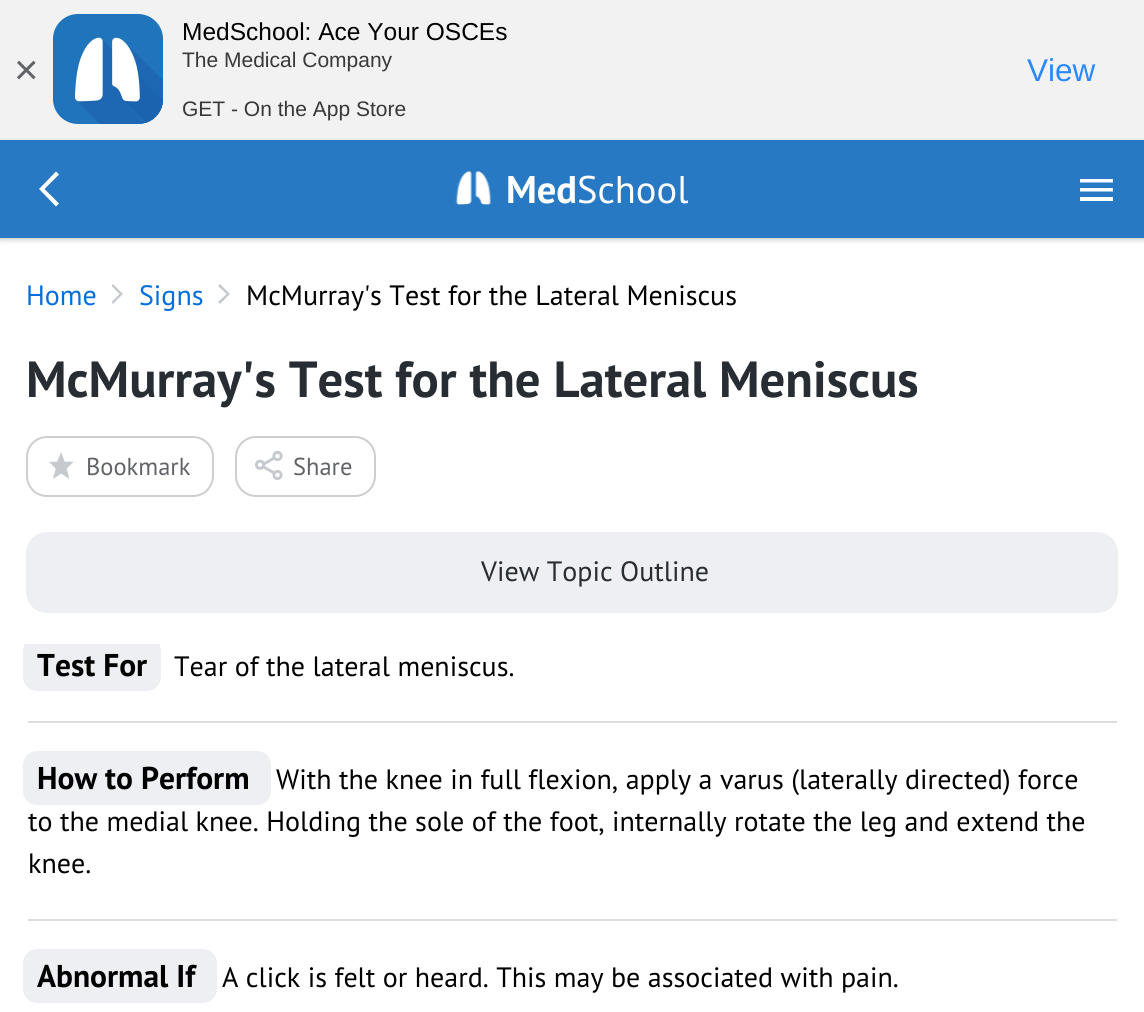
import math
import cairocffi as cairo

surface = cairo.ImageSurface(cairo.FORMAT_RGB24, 1144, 1012)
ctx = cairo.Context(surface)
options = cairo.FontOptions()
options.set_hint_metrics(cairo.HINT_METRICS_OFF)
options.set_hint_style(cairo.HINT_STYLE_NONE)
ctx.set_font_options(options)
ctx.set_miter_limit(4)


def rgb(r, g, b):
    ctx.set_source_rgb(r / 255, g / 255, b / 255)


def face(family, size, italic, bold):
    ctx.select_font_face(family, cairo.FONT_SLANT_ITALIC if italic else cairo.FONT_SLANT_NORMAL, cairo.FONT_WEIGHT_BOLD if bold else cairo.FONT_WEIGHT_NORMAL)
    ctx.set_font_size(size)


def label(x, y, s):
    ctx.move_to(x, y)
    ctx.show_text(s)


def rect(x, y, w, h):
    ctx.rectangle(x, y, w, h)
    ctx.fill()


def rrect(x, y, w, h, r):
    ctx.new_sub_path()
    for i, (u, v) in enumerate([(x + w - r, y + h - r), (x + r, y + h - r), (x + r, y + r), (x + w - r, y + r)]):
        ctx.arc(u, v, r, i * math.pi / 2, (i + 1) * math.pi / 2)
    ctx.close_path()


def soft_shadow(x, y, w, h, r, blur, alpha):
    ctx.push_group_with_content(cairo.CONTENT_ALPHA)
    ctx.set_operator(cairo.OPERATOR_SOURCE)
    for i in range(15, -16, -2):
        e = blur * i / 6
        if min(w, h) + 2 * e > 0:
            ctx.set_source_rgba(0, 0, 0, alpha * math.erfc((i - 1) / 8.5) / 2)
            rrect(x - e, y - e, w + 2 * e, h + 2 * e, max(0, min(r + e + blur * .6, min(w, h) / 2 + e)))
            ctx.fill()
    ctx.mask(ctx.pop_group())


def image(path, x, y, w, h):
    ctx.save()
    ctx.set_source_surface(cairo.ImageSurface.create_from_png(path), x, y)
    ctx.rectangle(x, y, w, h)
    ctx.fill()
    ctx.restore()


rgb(255, 255, 255)
ctx.paint()
rgb(242, 242, 242)
rect(0, 0, 1144, 140)
face('Liberation Sans', 42, 0, 0)
rgb(97, 99, 103)
label(14, 84, '×')
image('image0.png', 53, 14, 110, 110)
face('Liberation Sans', 24.5, 0, 0)
rgb(0, 0, 0)
label(182, 40, 'MedSchool: Ace Your OSCEs')
face('Liberation Sans', 21, 0, 0)
rgb(56, 56, 56)
label(182, 67, 'The Medical Company')
label(182, 116, 'GET - On the App Store')
face('Liberation Sans', 31.5, 0, 0)
rgb(42, 137, 253)
label(1027, 81, 'View')
rgb(0, 0, 0)
soft_shadow(0, 142, 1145, 98, 0, 2.5, 0.2)
rgb(39, 121, 196)
rect(0, 140, 1144, 98)
rgb(255, 255, 255)
ctx.new_path()
ctx.move_to(56, 171.5)
ctx.line_to(39, 189)
ctx.line_to(56, 206.5)
ctx.line_to(59, 203.5)
ctx.line_to(44.5, 189)
ctx.line_to(59, 174.5)
ctx.close_path()
ctx.fill()
image('image1.png', 455, 171, 37, 34)
face('PT Sans', 38.5, 0, 1)
label(506, 203, 'Med')
face('PT Sans', 38.5, 0, 0)
label(577, 203, 'School')
ctx.new_path()
ctx.move_to(1113, 201)
ctx.line_to(1080, 201)
ctx.line_to(1080, 197)
ctx.line_to(1113, 197)
ctx.close_path()
ctx.move_to(1113, 191.5)
ctx.line_to(1080, 191.5)
ctx.line_to(1080, 188)
ctx.line_to(1113, 188)
ctx.close_path()
ctx.move_to(1113, 182.5)
ctx.line_to(1080, 182.5)
ctx.line_to(1080, 179)
ctx.line_to(1113, 179)
ctx.close_path()
ctx.fill()
face('PT Sans', 28, 0, 0)
rgb(4, 111, 218)
label(26, 305, 'Home')
rgb(198, 202, 206)
ctx.new_path()
ctx.move_to(113, 304)
ctx.line_to(123, 294)
ctx.line_to(113, 284)
ctx.line_to(111.5, 286)
ctx.line_to(119.5, 294)
ctx.line_to(111.5, 302)
ctx.close_path()
ctx.fill()
rgb(4, 111, 218)
label(139, 305, 'Signs')
rgb(198, 202, 206)
ctx.new_path()
ctx.move_to(220, 304)
ctx.line_to(230, 294)
ctx.line_to(220, 284)
ctx.line_to(218, 286)
ctx.line_to(226.5, 294)
ctx.line_to(218, 302)
ctx.close_path()
ctx.fill()
rgb(0, 0, 0)
label(246, 305, 'McMurray\'s Test for the Lateral Meniscus')
face('PT Sans', 50.75, 0, 1)
rgb(40, 44, 51)
label(26, 397, 'McMurray\'s Test for the Lateral Meniscus')
rrect(27, 437, 186, 59, 20)
rgb(206, 206, 206)
ctx.stroke()
image('image2.png', 49, 452, 25, 27)
face('PT Sans', 24.5, 0, 0)
rgb(97, 99, 103)
label(86, 475, 'Bookmark')
rrect(236, 437, 139, 59, 20)
rgb(206, 206, 206)
ctx.stroke()
image('image3.png', 255, 450, 28, 30)
rgb(97, 99, 103)
label(293, 475, 'Share')
rgb(238, 239, 242)
rrect(26, 532, 1092, 81, 21)
ctx.fill()
face('PT Sans', 28, 0, 0)
rgb(40, 44, 51)
label(481, 581, 'View Topic Outline')
ctx.save()
ctx.rectangle(0, 644, 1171, 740)
ctx.clip()
rgb(238, 239, 242)
rrect(23, 637, 138, 54, 14)
ctx.fill()
ctx.restore()
face('PT Sans', 31.5, 0, 1)
rgb(0, 0, 0)
label(37, 676, 'Test For')
face('PT Sans', 28, 0, 0)
label(174, 676, 'Tear of the lateral meniscus.')
rgb(221, 221, 221)
rect(28, 721, 1089, 2)
rgb(238, 239, 242)
rrect(23, 751, 248, 54, 14)
ctx.fill()
face('PT Sans', 31.5, 0, 1)
rgb(0, 0, 0)
label(37, 789, 'How to Perform')
face('PT Sans', 28, 0, 0)
label(276, 789, 'With the knee in full flexion, apply a varus (laterally directed) force')
label(28, 831, 'to the medial knee. Holding the sole of the foot, internally rotate the leg and extend the')
label(28, 873, 'knee.')
rgb(221, 221, 221)
rect(28, 919, 1089, 2)
rgb(238, 239, 242)
rrect(23, 949, 194, 54, 14)
ctx.fill()
face('PT Sans', 31.5, 0, 1)
rgb(0, 0, 0)
label(37, 987, 'Abnormal If')
face('PT Sans', 28, 0, 0)
label(222, 987, 'A click is felt or heard. This may be associated with pain.')
surface.write_to_png('render.png')
